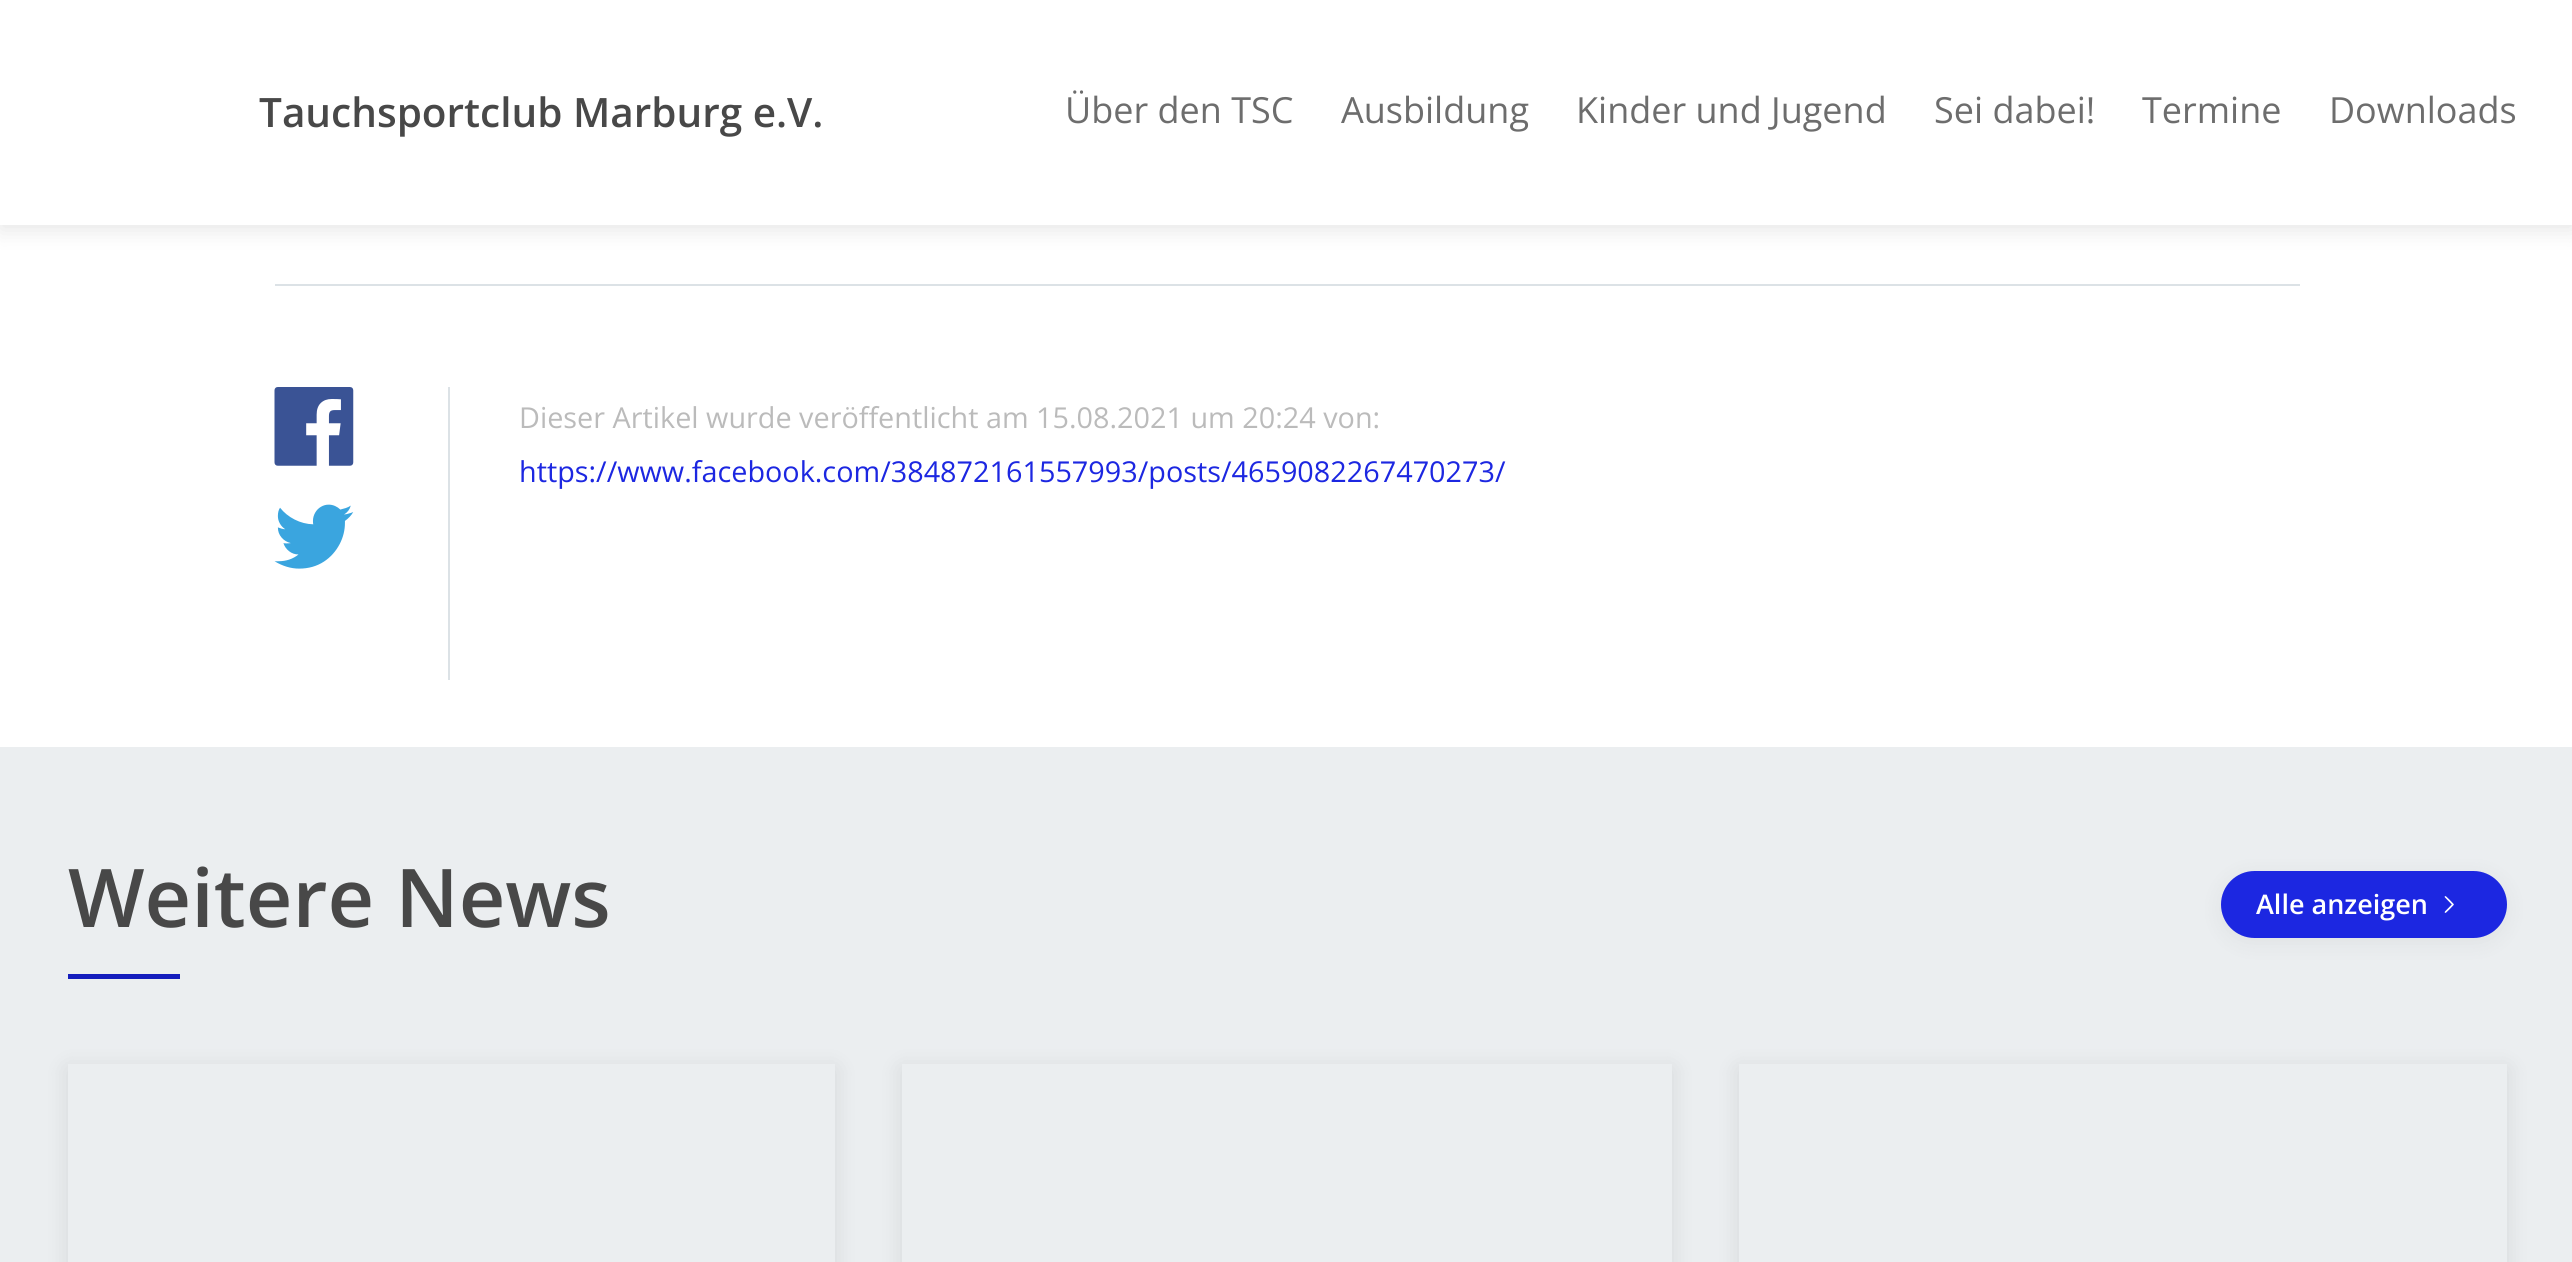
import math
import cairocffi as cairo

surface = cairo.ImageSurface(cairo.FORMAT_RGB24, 2572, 1262)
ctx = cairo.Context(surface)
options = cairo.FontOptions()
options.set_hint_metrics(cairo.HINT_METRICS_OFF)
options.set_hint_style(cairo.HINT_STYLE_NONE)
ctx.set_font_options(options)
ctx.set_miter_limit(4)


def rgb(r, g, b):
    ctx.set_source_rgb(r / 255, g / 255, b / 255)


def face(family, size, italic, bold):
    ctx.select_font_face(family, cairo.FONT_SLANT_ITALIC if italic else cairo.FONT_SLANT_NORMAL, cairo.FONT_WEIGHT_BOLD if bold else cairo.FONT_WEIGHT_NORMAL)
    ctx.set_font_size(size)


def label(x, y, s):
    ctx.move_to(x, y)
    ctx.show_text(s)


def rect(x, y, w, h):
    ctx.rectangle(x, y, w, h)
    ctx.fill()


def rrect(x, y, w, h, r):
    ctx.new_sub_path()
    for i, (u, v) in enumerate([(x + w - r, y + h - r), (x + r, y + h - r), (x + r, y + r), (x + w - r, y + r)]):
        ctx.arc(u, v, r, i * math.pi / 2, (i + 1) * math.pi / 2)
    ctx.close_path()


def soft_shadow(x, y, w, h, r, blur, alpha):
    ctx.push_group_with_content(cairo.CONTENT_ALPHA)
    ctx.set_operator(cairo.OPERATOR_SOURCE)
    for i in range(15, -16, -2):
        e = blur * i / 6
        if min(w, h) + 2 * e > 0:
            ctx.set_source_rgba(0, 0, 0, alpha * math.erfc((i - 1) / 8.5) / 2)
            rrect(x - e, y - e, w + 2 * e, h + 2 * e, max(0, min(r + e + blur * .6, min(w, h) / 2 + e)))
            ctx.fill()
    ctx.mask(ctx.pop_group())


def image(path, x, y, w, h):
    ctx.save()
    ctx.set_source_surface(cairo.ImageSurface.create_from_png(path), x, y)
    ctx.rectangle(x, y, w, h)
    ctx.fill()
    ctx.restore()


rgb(255, 255, 255)
ctx.paint()
rgb(0, 0, 0)
soft_shadow(0, 5, 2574, 225, 0, 11, 0.1)
rgb(255, 255, 255)
rect(0, 0, 2572, 225)
face('Open Sans SemiBold', 40.5, 0, 0)
rgb(72, 72, 72)
label(259, 127, 'Tauchsportclub Marburg e.V.')
face('Open Sans', 36, 0, 0)
rgb(109, 109, 109)
label(1065, 123, 'Über den TSC')
label(1341, 123, 'Ausbildung')
label(1576, 123, 'Kinder und Jugend')
label(1934, 123, 'Sei dabei!')
label(2142, 123, 'Termine')
label(2329, 123, 'Downloads')
rgb(220, 226, 230)
rect(275, 284, 2025, 2)
image('image0.png', 274, 387, 80, 79)
image('image1.png', 274, 504, 80, 65)
rect(448, 387, 2, 293)
face('Open Sans', 28.8, 0, 0)
rgb(187, 187, 187)
label(519, 428, 'Dieser Artikel wurde veröffentlicht am 15.08.2021 um 20:24 von:')
rgb(28, 39, 225)
label(519, 482, 'https://www.facebook.com/384872161557993/posts/4659082267470273/')
rgb(235, 238, 240)
rect(0, 747, 2572, 515)
face('Open Sans SemiBold', 81, 0, 0)
rgb(72, 72, 72)
label(68, 927, 'Weitere News')
rgb(20, 29, 189)
rect(68, 974, 112, 5)
rgb(0, 0, 0)
soft_shadow(2221, 875, 286, 68, 34, 11, 0.05)
rgb(28, 39, 225)
rrect(2221, 871, 286, 67, 33.5)
ctx.fill()
face('Open Sans SemiBold', 27, 0, 0)
rgb(255, 255, 255)
label(2256, 914, 'Alle anzeigen')
image('image2.png', 2444, 896, 10, 17)
rgb(0, 0, 0)
soft_shadow(68, 1069, 767, 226, 0, 11, 0.1)
rgb(235, 238, 240)
rect(68, 1064, 767, 198)
rgb(0, 0, 0)
soft_shadow(902, 1069, 770, 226, 0, 11, 0.1)
rgb(235, 238, 240)
rect(902, 1064, 770, 198)
rgb(0, 0, 0)
soft_shadow(1739, 1069, 768, 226, 0, 11, 0.1)
rgb(235, 238, 240)
rect(1739, 1064, 768, 198)
surface.write_to_png('render.png')
